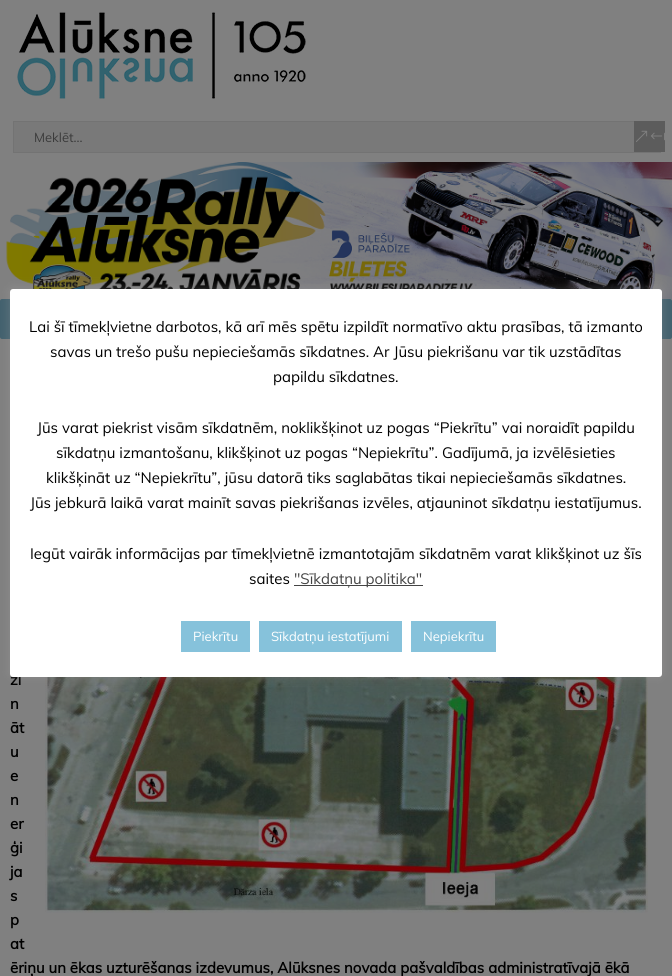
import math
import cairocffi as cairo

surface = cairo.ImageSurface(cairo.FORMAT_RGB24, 672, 976)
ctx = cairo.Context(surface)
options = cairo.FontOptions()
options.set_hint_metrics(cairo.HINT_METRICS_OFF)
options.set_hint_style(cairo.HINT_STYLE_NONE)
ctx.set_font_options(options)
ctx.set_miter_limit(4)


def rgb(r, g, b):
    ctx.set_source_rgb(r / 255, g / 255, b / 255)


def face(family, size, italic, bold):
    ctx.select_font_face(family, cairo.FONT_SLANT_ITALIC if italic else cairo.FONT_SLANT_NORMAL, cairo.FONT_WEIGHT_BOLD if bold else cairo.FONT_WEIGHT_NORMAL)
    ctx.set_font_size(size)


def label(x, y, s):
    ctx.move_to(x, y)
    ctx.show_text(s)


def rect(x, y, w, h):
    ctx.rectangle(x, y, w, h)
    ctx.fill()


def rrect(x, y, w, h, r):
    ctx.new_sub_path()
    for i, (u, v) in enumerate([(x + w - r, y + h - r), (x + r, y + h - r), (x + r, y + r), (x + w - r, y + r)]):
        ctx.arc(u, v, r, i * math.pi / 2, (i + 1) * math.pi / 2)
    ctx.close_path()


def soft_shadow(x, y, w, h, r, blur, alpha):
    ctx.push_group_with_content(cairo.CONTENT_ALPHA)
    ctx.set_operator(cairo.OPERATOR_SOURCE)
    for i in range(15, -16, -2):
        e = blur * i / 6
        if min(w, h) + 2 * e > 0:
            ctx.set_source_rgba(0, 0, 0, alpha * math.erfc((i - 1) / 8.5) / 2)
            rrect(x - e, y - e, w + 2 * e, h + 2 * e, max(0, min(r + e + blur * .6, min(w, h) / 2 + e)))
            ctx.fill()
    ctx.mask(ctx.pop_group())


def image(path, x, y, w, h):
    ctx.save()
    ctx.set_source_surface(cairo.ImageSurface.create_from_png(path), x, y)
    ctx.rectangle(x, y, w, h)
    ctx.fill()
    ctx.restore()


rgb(128, 128, 128)
ctx.paint()
image('image0.png', 17, 12, 289, 87)
rgb(121, 121, 121)
rect(14, 122, 620, 30)
ctx.rectangle(13.5, 121.5, 647, 31)
rgb(115, 115, 115)
ctx.set_line_width(1)
ctx.stroke()
face('Muli', 13, 0, 0)
rgb(59, 59, 59)
label(34, 142, 'Meklēt...')
rgb(92, 92, 92)
rect(634, 121, 31, 31)
image('image1.png', 636, 130, 29, 12)
image('image2.png', 6, 162, 666, 137)
rgb(67, 97, 110)
rrect(0, 299, 672, 40, 2)
ctx.fill()
face('Muli', 15, 0, 1)
rgb(0, 0, 0)
label(10, 685, 'zi')
image('image3.png', 45, 677, 603, 236)
label(10, 709, 'n')
label(10, 733, 'āt')
label(10, 757, 'u')
label(10, 781, 'e')
label(10, 805, 'n')
label(10, 829, 'er')
label(10, 853, 'ģi')
label(10, 877, 'ja')
label(10, 901, 's')
label(10, 925, 'p')
label(10, 949, 'at')
label(10, 973, 'ēriņu un ēkas uzturēšanas izdevumus, Alūksnes novada pašvaldības administratīvajā ēkā')
rgb(172, 171, 171)
soft_shadow(10, 288, 652, 388, 3, 5, 0.3)
rgb(255, 255, 255)
rrect(10, 289, 652, 388, 3)
ctx.fill()
face('Muli', 15, 0, 0)
rgb(0, 0, 0)
label(29, 332, 'Lai šī tīmekļvietne darbotos, kā arī mēs spētu izpildīt normatīvo aktu prasības, tā izmanto')
label(50, 357, 'savas un trešo pušu nepieciešamās sīkdatnes. Ar Jūsu piekrišanu var tik uzstādītas')
label(273, 382, 'papildu sīkdatnes.')
label(37, 433, 'Jūs varat piekrist visām sīkdatnēm, noklikšķinot uz pogas “Piekrītu” vai noraidīt papildu')
label(56, 458, 'sīkdatņu izmantošanu, klikšķinot uz pogas “Nepiekrītu”. Gadījumā, ja izvēlēsieties')
label(46, 483, 'klikšķināt uz “Nepiekrītu”, jūsu datorā tiks saglabātas tikai nepieciešamās sīkdatnes.')
label(30, 508, 'Jūs jebkurā laikā varat mainīt savas piekrišanas izvēles, atjauninot sīkdatņu iestatījumus.')
label(30, 559, 'Iegūt vairāk informācijas par tīmekļvietnē izmantotajām sīkdatnēm varat klikšķinot uz šīs')
label(249, 584, 'saites')
rgb(68, 68, 68)
rect(294, 585, 129, 1)
label(294, 584, '"Sīkdatņu politika"')
rgb(134, 194, 219)
rect(181, 621, 69, 31)
face('Muli', 13, 0, 0)
rgb(255, 255, 255)
label(193, 641, 'Piekrītu')
rgb(134, 194, 219)
rect(259, 621, 143, 31)
rgb(255, 255, 255)
label(271, 641, 'Sīkdatņu iestatījumi')
rgb(134, 194, 219)
rect(411, 621, 85, 31)
rgb(255, 255, 255)
label(423, 641, 'Nepiekrītu')
surface.write_to_png('render.png')
